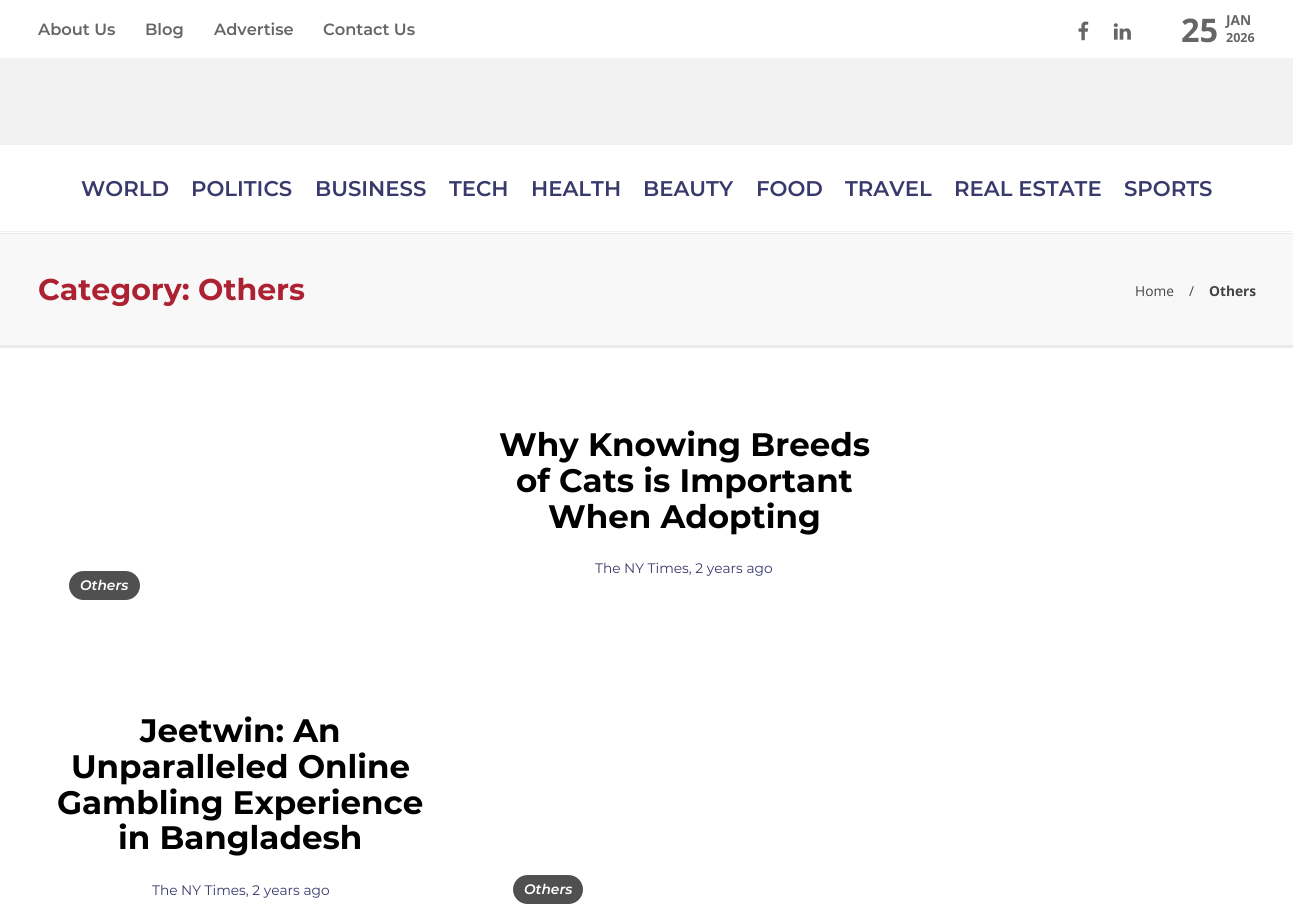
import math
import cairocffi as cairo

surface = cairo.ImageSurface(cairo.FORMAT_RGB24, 1293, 910)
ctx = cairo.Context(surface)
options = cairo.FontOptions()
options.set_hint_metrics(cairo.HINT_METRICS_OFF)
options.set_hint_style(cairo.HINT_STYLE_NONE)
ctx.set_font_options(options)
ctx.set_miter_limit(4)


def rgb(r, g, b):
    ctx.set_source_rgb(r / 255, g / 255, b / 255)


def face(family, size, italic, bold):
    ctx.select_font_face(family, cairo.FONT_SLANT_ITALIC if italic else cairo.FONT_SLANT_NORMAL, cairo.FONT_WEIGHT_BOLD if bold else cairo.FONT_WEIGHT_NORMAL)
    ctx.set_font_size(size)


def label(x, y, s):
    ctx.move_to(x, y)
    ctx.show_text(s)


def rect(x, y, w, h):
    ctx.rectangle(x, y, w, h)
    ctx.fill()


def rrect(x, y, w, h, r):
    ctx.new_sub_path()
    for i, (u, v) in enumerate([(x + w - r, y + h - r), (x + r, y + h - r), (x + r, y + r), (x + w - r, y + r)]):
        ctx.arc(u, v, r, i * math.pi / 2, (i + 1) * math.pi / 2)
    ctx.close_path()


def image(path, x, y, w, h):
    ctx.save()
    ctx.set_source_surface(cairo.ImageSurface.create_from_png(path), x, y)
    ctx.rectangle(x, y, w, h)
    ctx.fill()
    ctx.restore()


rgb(255, 255, 255)
ctx.paint()
face('Montserrat SemiBold', 16.25, 0, 0)
rgb(102, 102, 102)
label(38, 35, 'About Us')
label(145, 35, 'Blog')
label(214, 35, 'Advertise')
label(323, 35, 'Contact Us')
image('image0.png', 1078, 21, 11, 20)
image('image1.png', 1113, 23, 18, 17)
face('Open Sans', 32.5, 0, 1)
label(1181, 42, '25')
face('Open Sans', 13.75, 0, 1)
label(1226, 25, 'JAN')
face('Open Sans', 12.5, 0, 1)
label(1226, 42, '2026')
rgb(242, 242, 242)
rect(0, 58, 1293, 86)
rgb(241, 241, 241)
rect(0, 144, 1293, 1)
rect(0, 231, 1293, 1)
face('Montserrat SemiBold', 21.25, 0, 0)
rgb(58, 57, 107)
label(81, 196, 'WORLD')
label(191, 196, 'POLITICS')
label(315, 196, 'BUSINESS')
label(449, 196, 'TECH')
label(531, 196, 'HEALTH')
label(643, 196, 'BEAUTY')
label(756, 196, 'FOOD')
label(845, 196, 'TRAVEL')
label(954, 196, 'REAL ESTATE')
label(1124, 196, 'SPORTS')
rgb(248, 248, 248)
rect(0, 234, 1293, 111)
rgb(235, 235, 235)
rect(0, 233, 1293, 1)
rect(0, 345, 1293, 3)
face('Montserrat', 30, 0, 1)
rgb(173, 34, 51)
label(38, 300, 'Category: Others')
face('Open Sans', 13.75, 0, 0)
rgb(68, 68, 68)
label(1135, 296, 'Home')
label(1189, 296, '/')
face('Open Sans', 13.75, 0, 1)
label(1209, 296, 'Others')
face('Montserrat', 32.5, 0, 1)
rgb(0, 0, 0)
label(499, 456, 'Why Knowing Breeds')
label(516, 492, 'of Cats is Important')
label(548, 528, 'When Adopting')
face('Montserrat', 13.75, 0, 0)
rgb(58, 57, 107)
label(595, 573, 'The NY Times, 2 years ago')
rgb(81, 80, 80)
rrect(69, 571, 71, 29, 14.5)
ctx.fill()
face('Montserrat SemiBold', 13.75, 1, 0)
rgb(255, 255, 255)
label(80, 590, 'Others')
face('Montserrat', 32.5, 0, 1)
rgb(0, 0, 0)
label(140, 742, 'Jeetwin: An')
label(71, 778, 'Unparalleled Online')
label(57, 814, 'Gambling Experience')
label(118, 849, 'in Bangladesh')
face('Montserrat', 13.75, 0, 0)
rgb(58, 57, 107)
label(152, 895, 'The NY Times, 2 years ago')
rgb(81, 80, 80)
rrect(513, 875, 70, 29, 14.5)
ctx.fill()
face('Montserrat SemiBold', 13.75, 1, 0)
rgb(255, 255, 255)
label(524, 894, 'Others')
surface.write_to_png('render.png')
